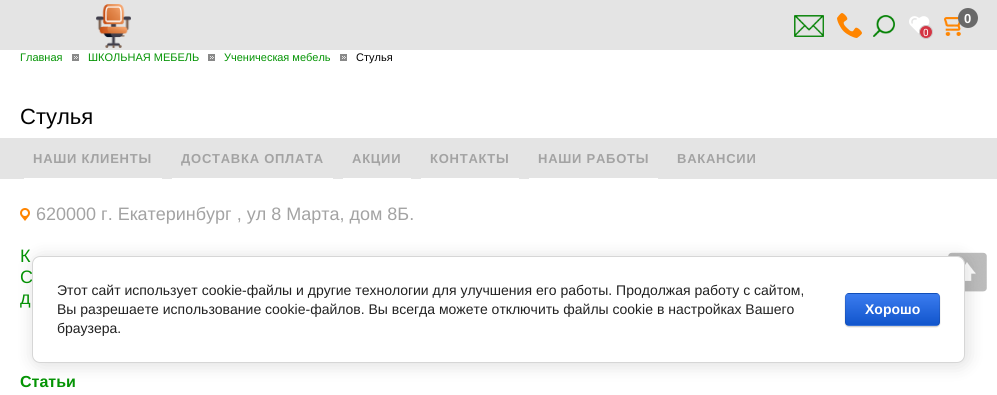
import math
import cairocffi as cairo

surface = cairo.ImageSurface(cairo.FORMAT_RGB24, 997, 395)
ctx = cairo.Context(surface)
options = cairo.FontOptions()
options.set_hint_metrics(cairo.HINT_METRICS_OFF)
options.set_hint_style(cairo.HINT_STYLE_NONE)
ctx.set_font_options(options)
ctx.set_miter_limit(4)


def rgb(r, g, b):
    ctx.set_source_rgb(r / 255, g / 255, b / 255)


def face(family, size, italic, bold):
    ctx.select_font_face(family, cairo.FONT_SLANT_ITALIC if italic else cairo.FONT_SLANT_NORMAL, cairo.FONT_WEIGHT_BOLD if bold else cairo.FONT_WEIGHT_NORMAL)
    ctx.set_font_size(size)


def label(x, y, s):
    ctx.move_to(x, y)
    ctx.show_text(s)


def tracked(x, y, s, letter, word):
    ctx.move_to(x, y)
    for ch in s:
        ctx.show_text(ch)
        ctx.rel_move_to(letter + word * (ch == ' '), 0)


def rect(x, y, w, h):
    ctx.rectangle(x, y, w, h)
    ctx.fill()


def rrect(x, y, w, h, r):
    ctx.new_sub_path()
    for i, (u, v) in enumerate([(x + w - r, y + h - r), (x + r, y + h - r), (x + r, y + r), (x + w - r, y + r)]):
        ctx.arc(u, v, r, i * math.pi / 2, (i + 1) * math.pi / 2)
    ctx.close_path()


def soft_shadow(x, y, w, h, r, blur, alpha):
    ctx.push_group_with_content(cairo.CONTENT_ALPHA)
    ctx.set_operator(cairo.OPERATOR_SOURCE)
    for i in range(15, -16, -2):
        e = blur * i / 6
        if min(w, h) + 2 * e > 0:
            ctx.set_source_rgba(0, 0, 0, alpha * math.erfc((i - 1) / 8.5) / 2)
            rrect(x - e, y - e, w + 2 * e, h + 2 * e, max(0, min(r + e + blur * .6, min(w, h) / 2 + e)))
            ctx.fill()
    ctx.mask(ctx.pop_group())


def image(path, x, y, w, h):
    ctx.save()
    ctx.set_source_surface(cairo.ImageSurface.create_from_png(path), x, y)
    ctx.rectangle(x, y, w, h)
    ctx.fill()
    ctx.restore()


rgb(255, 255, 255)
ctx.paint()
rgb(228, 228, 228)
rect(0, 0, 997, 50)
image('image0.png', 96, 4, 35, 44)
image('image1.png', 794, 15, 30, 22)
image('image2.png', 837, 13, 25, 25)
image('image3.png', 873, 15, 22, 22)
image('image4.png', 909, 16, 21, 18)
rgb(212, 52, 67)
ctx.arc(926, 32, 6.5, 0, 2 * math.pi)
ctx.fill_preserve()
rgb(204, 204, 204)
ctx.set_line_width(1)
ctx.stroke()
face('Roboto', 10, 0, 0)
rgb(255, 255, 255)
label(923, 36, '0')
image('image5.png', 944, 17, 17, 19)
rgb(105, 105, 105)
ctx.arc(968, 18, 10, 0, 2 * math.pi)
ctx.fill()
face('Liberation Sans', 13, 0, 1)
rgb(255, 255, 255)
label(964, 23, '0')
face('Liberation Sans', 11, 0, 0)
rgb(4, 148, 4)
label(20, 61, 'Главная')
image('image6.png', 72, 54, 7, 7)
label(88, 61, 'ШКОЛЬНАЯ МЕБЕЛЬ')
image('image6.png', 208, 54, 7, 7)
label(224, 61, 'Ученическая мебель')
image('image6.png', 340, 54, 7, 7)
rgb(1, 1, 1)
label(356, 61, 'Стулья')
face('Liberation Sans', 22, 0, 0)
label(20, 124, 'Стулья')
rgb(228, 228, 228)
rect(0, 138, 997, 41)
rgb(255, 255, 255)
rect(24, 178, 138, 1)
face('Liberation Sans', 13, 0, 1)
rgb(163, 163, 163)
tracked(33, 163, 'НАШИ КЛИЕНТЫ', 0.75, 0)
rgb(255, 255, 255)
rect(172, 178, 161, 1)
rgb(163, 163, 163)
tracked(181, 163, 'ДОСТАВКА ОПЛАТА', 0.75, 0)
rgb(255, 255, 255)
rect(343, 178, 68, 1)
rgb(163, 163, 163)
tracked(352, 163, 'АКЦИИ', 0.75, 0)
rgb(255, 255, 255)
rect(421, 178, 98, 1)
rgb(163, 163, 163)
tracked(430, 163, 'КОНТАКТЫ', 0.75, 0)
rgb(255, 255, 255)
rect(529, 178, 129, 1)
rgb(163, 163, 163)
tracked(538, 163, 'НАШИ РАБОТЫ', 0.75, 0)
tracked(677, 163, 'ВАКАНСИИ', 0.75, 0)
image('image7.png', 20, 208, 10, 13)
face('Liberation Sans', 18, 0, 0)
label(36, 220, '620000 г. Екатеринбург , ул 8 Марта, дом 8Б.')
rgb(4, 148, 4)
label(20, 262, 'К')
label(20, 283, 'С')
label(20, 304, 'д')
face('Liberation Sans', 16, 0, 1)
label(20, 387, 'Статьи')
image('image8.png', 948, 252, 39, 40)
rgb(0, 0, 0)
soft_shadow(34, 258, 933, 107, 8, 9, 0.14)
rgb(255, 255, 255)
rrect(32.5, 256.5, 932, 106, 7.5)
ctx.fill_preserve()
rgb(214, 214, 214)
ctx.stroke()
face('Liberation Sans', 14, 0, 0)
rgb(33, 33, 33)
label(57, 295, 'Этот сайт использует cookie-файлы и другие технологии для улучшения его работы. Продолжая работу с сайтом,')
label(57, 314, 'Вы разрешаете использование cookie-файлов. Вы всегда можете отключить файлы cookie в настройках Вашего')
label(57, 333, 'браузера.')
rgb(0, 0, 0)
soft_shadow(845, 294, 95, 33, 4, 0.5, 0.2)
ctx.save()
rrect(845, 293, 95, 33, 4)
ctx.clip()
gradient = cairo.LinearGradient(893, 263, 893, 294)
gradient.add_color_stop_rgba(0, 0.231, 0.486, 0.937, 1)
gradient.add_color_stop_rgba(1, 0.067, 0.333, 0.8, 1)
ctx.set_source(gradient)
rect(845, 293, 95, 1)
gradient = cairo.LinearGradient(893, 294, 893, 325)
gradient.add_color_stop_rgba(0, 0.231, 0.486, 0.937, 1)
gradient.add_color_stop_rgba(1, 0.067, 0.333, 0.8, 1)
ctx.set_source(gradient)
rect(845, 294, 95, 31)
gradient = cairo.LinearGradient(893, 325, 893, 356)
gradient.add_color_stop_rgba(0, 0.231, 0.486, 0.937, 1)
gradient.add_color_stop_rgba(1, 0.067, 0.333, 0.8, 1)
ctx.set_source(gradient)
rect(845, 325, 95, 1)
ctx.restore()
rrect(845.5, 293.5, 94, 32, 3.5)
ctx.set_source_rgba(0, 0, 0, 0.1)
ctx.stroke()
face('Liberation Sans', 14, 0, 1)
rgb(255, 255, 255)
label(865, 314, 'Хорошо')
surface.write_to_png('render.png')
